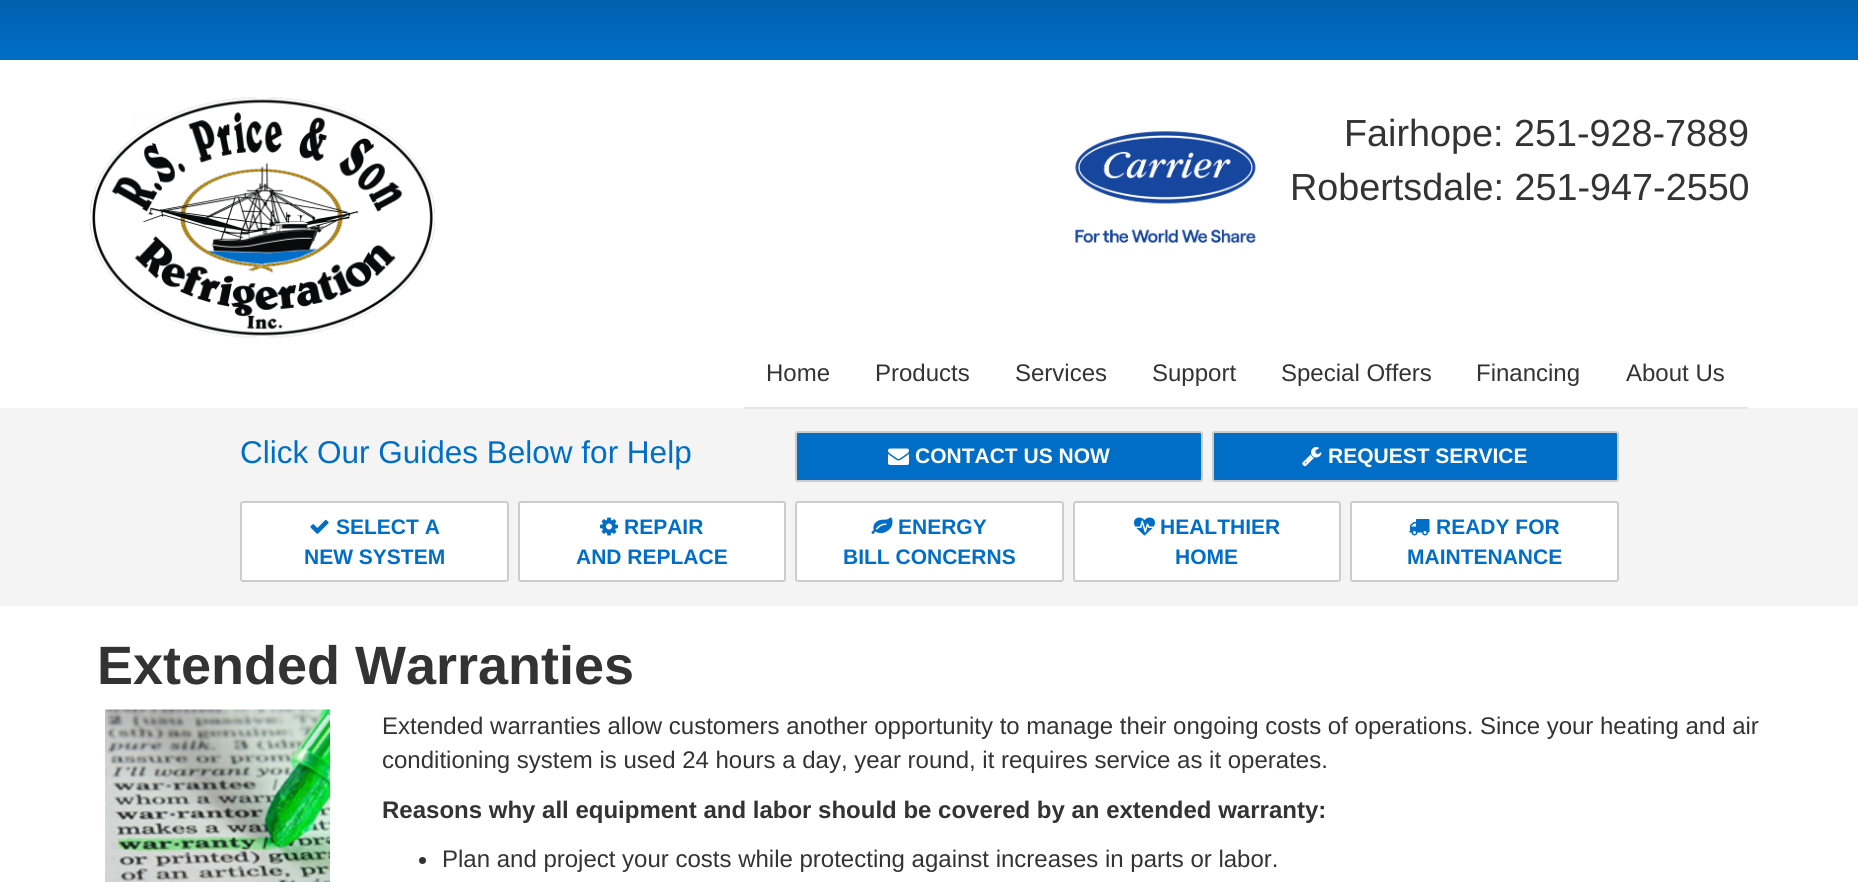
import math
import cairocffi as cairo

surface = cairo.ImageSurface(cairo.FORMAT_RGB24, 1858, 882)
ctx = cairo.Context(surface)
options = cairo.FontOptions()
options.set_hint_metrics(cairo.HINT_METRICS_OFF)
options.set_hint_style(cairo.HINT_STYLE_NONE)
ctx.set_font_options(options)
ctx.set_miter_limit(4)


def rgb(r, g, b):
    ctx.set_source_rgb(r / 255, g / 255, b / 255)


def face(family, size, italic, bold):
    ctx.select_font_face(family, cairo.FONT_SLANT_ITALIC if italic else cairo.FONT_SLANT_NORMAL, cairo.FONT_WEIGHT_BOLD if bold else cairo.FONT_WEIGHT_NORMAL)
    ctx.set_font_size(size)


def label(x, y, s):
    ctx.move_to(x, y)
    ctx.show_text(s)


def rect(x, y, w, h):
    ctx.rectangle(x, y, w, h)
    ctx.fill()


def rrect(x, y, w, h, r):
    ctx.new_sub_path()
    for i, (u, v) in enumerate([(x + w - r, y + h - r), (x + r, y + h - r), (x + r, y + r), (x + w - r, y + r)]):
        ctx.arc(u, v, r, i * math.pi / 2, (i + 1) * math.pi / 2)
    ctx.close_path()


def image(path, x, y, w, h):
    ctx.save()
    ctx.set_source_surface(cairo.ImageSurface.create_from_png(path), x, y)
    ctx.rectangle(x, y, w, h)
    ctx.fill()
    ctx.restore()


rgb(255, 255, 255)
ctx.paint()
gradient = cairo.LinearGradient(929, 0, 929, 60)
gradient.add_color_stop_rgba(0, 0, 0.376, 0.682, 1)
gradient.add_color_stop_rgba(1, 0, 0.431, 0.78, 1)
ctx.set_source(gradient)
rect(0, 0, 1858, 60)
image('image0.png', 90, 97, 345, 241)
image('image1.png', 1075, 131, 181, 112)
face('Arimo', 37.75, 0, 0)
rgb(51, 51, 51)
label(1344, 146, 'Fairhope: 251-928-7889')
label(1290, 200, 'Robertsdale: 251-947-2550')
rgb(244, 244, 244)
rect(0, 408, 1858, 198)
rgb(231, 231, 231)
rect(744, 407, 1004, 2)
face('Arimo', 24, 0, 0)
rgb(51, 51, 51)
label(766, 381, 'Home')
label(875, 381, 'Products')
label(1015, 381, 'Services')
label(1152, 381, 'Support')
label(1281, 381, 'Special Offers')
label(1476, 381, 'Financing')
label(1626, 381, 'About Us')
face('Arimo', 31.5, 0, 0)
rgb(0, 110, 199)
label(240, 463, 'Click Our Guides Below for Help')
rrect(796, 432, 406, 49, 2)
ctx.fill_preserve()
rgb(204, 204, 204)
ctx.stroke()
image('image2.png', 888, 448, 21, 17)
face('Arimo', 21, 0, 1)
rgb(255, 255, 255)
label(915, 463, 'CONTACT US NOW')
rgb(0, 110, 199)
rrect(1213, 432, 405, 49, 2)
ctx.fill_preserve()
rgb(204, 204, 204)
ctx.stroke()
image('image3.png', 1302, 447, 20, 20)
rgb(255, 255, 255)
label(1328, 463, 'REQUEST SERVICE')
rrect(241, 502, 267, 79, 2)
ctx.fill_preserve()
rgb(204, 204, 204)
ctx.stroke()
image('image4.png', 310, 519, 19, 15)
rgb(0, 110, 199)
label(336, 534, 'SELECT A')
label(304, 564, 'NEW SYSTEM')
rgb(255, 255, 255)
rrect(519, 502, 266, 79, 2)
ctx.fill_preserve()
rgb(204, 204, 204)
ctx.stroke()
image('image5.png', 600, 517, 18, 19)
rgb(0, 110, 199)
label(624, 534, 'REPAIR')
label(576, 564, 'AND REPLACE')
rgb(255, 255, 255)
rrect(796, 502, 267, 79, 2)
ctx.fill_preserve()
rgb(204, 204, 204)
ctx.stroke()
image('image6.png', 871, 517, 22, 17)
rgb(0, 110, 199)
label(898, 534, 'ENERGY')
label(843, 564, 'BILL CONCERNS')
rgb(255, 255, 255)
rrect(1074, 502, 266, 79, 2)
ctx.fill_preserve()
rgb(204, 204, 204)
ctx.stroke()
image('image7.png', 1134, 517, 21, 19)
rgb(0, 110, 199)
label(1160, 534, 'HEALTHIER')
label(1175, 564, 'HOME')
rgb(255, 255, 255)
rrect(1351, 502, 267, 79, 2)
ctx.fill_preserve()
rgb(204, 204, 204)
ctx.stroke()
image('image8.png', 1409, 519, 21, 17)
rgb(0, 110, 199)
label(1436, 534, 'READY FOR')
label(1407, 564, 'MAINTENANCE')
face('Arimo', 54, 0, 1)
rgb(51, 51, 51)
label(97, 684, 'Extended Warranties')
image('image9.png', 105, 709, 225, 173)
face('Arimo', 24, 0, 0)
label(382, 734, 'Extended warranties allow customers another opportunity to manage their ongoing costs of operations. Since your heating and air')
label(382, 768, 'conditioning system is used 24 hours a day, year round, it requires service as it operates.')
face('Arimo', 24, 0, 1)
label(382, 818, 'Reasons why all equipment and labor should be covered by an extended warranty:')
ctx.new_path()
ctx.arc(422.5, 860.5, 3.5, 0, 2 * math.pi)
ctx.fill()
face('Arimo', 24, 0, 0)
label(442, 867, 'Plan and project your costs while protecting against increases in parts or labor.')
surface.write_to_png('render.png')
